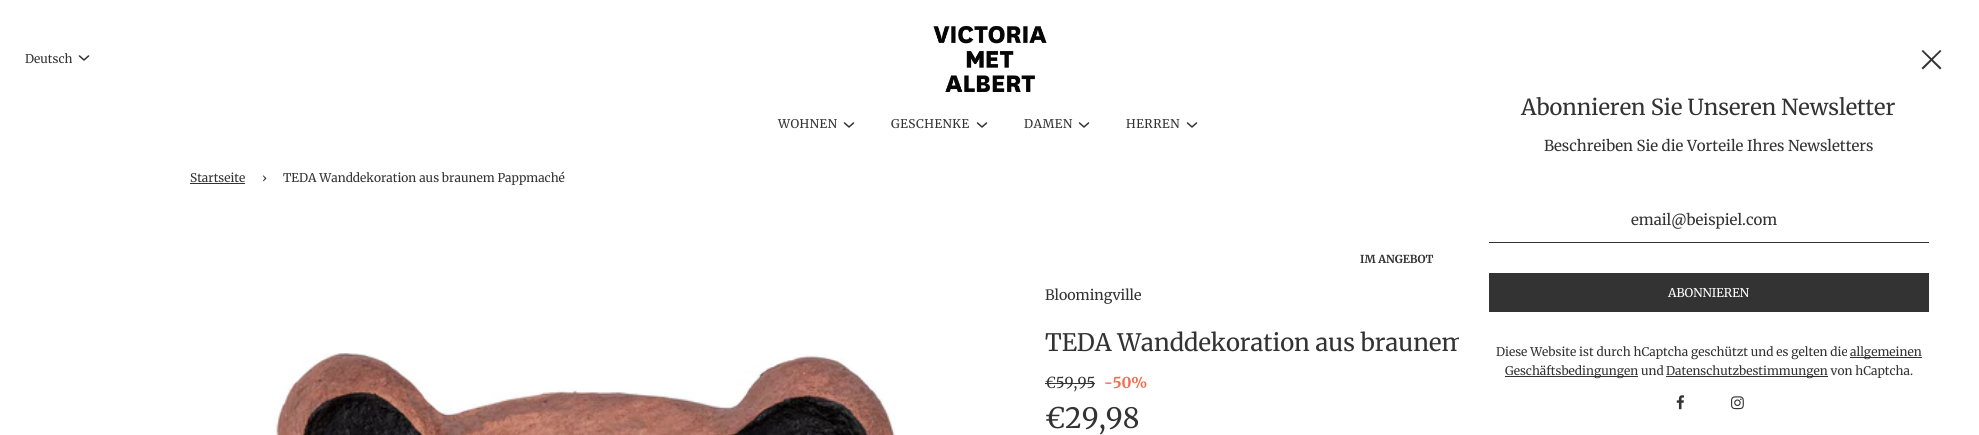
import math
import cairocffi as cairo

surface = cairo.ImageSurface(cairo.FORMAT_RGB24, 1979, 435)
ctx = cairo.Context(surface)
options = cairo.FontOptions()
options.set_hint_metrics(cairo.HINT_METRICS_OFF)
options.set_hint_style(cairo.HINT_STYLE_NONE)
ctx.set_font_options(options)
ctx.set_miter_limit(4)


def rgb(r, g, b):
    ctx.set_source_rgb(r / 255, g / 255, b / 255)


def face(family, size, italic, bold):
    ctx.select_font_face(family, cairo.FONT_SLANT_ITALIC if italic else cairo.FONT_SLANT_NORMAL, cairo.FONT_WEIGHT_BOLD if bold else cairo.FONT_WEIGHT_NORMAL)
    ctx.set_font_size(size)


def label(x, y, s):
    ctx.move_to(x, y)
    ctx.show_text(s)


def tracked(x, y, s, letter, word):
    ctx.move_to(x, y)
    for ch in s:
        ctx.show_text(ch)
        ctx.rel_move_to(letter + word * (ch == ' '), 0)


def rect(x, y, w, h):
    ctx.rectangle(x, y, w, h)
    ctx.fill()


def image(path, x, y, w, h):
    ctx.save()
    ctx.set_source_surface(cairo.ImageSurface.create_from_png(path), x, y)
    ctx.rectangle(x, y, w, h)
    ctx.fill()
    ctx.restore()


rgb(255, 255, 255)
ctx.paint()
face('Merriweather', 12, 0, 0)
rgb(51, 51, 51)
label(25, 63, 'Deutsch')
ctx.new_path()
ctx.move_to(79.5, 56)
ctx.line_to(84, 60)
ctx.line_to(88.5, 56)
ctx.set_line_width(1.5)
ctx.set_line_cap(cairo.LINE_CAP_ROUND)
ctx.set_line_join(cairo.LINE_JOIN_ROUND)
ctx.stroke()
image('image0.png', 933, 26, 114, 66)
tracked(778, 128, 'WOHNEN', 0.5, 0)
ctx.new_path()
ctx.move_to(844.5, 123)
ctx.line_to(849, 127)
ctx.line_to(853.5, 123)
ctx.stroke()
tracked(891, 128, 'GESCHENKE', 0.5, 0)
ctx.new_path()
ctx.move_to(977.5, 123)
ctx.line_to(982, 127)
ctx.line_to(986.5, 123)
ctx.stroke()
tracked(1024, 128, 'DAMEN', 0.5, 0)
ctx.new_path()
ctx.move_to(1079.5, 123)
ctx.line_to(1084, 127)
ctx.line_to(1088.5, 123)
ctx.stroke()
tracked(1126, 128, 'HERREN', 0.5, 0)
ctx.new_path()
ctx.move_to(1187.5, 123)
ctx.line_to(1192, 127)
ctx.line_to(1196.5, 123)
ctx.stroke()
label(190, 182, 'Startseite')
rect(190, 183, 55, 1)
label(262, 182, '›')
label(283, 182, 'TEDA Wanddekoration aus braunem Pappmaché')
image('image1.png', 274, 353, 622, 82)
face('Merriweather', 11, 0, 1)
label(1360, 263, 'IM ANGEBOT')
face('Merriweather', 14.25, 0, 0)
label(1045, 300, 'Bloomingville')
face('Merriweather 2', 24, 0, 0)
label(1045, 351, 'TEDA Wanddekoration aus braunem')
face('Merriweather', 15, 0, 0)
label(1045, 388, '€59,95')
rect(1045, 383, 50, 1)
face('Merriweather', 15, 0, 1)
rgb(242, 108, 79)
label(1104, 388, '-50%')
face('Merriweather', 28, 0, 0)
rgb(51, 51, 51)
label(1045, 428, '€29,98')
rgb(255, 255, 255)
rect(1459, 337, 6, 14)
rgb(51, 51, 51)
ctx.new_path()
ctx.move_to(1940, 50)
ctx.line_to(1941.5, 51)
ctx.line_to(1923, 69.5)
ctx.line_to(1921.5, 68)
ctx.close_path()
ctx.fill()
ctx.new_path()
ctx.move_to(1921.5, 51)
ctx.line_to(1923, 50)
ctx.line_to(1941.5, 68)
ctx.line_to(1940, 69.5)
ctx.close_path()
ctx.fill()
face('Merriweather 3', 22, 0, 0)
label(1521, 115, 'Abonnieren Sie Unseren Newsletter')
face('Merriweather', 15, 0, 0)
label(1544, 151, 'Beschreiben Sie die Vorteile Ihres Newsletters')
rect(1489, 242, 440, 1)
label(1631, 225, 'email@beispiel.com')
rect(1489, 273, 440, 39)
face('Merriweather', 12, 0, 0)
rgb(255, 255, 255)
label(1668, 297, 'ABONNIEREN')
rgb(51, 51, 51)
label(1496, 356, 'Diese Website ist durch hCaptcha geschützt und es gelten die')
rect(1850, 357, 72, 1)
label(1850, 356, 'allgemeinen')
rect(1505, 376, 133, 1)
label(1505, 375, 'Geschäftsbedingungen und')
rect(1666, 376, 162, 1)
label(1666, 375, 'Datenschutzbestimmungen von hCaptcha.')
image('image2.png', 1676, 395, 9, 15)
image('image3.png', 1731, 396, 13, 14)
surface.write_to_png('render.png')
